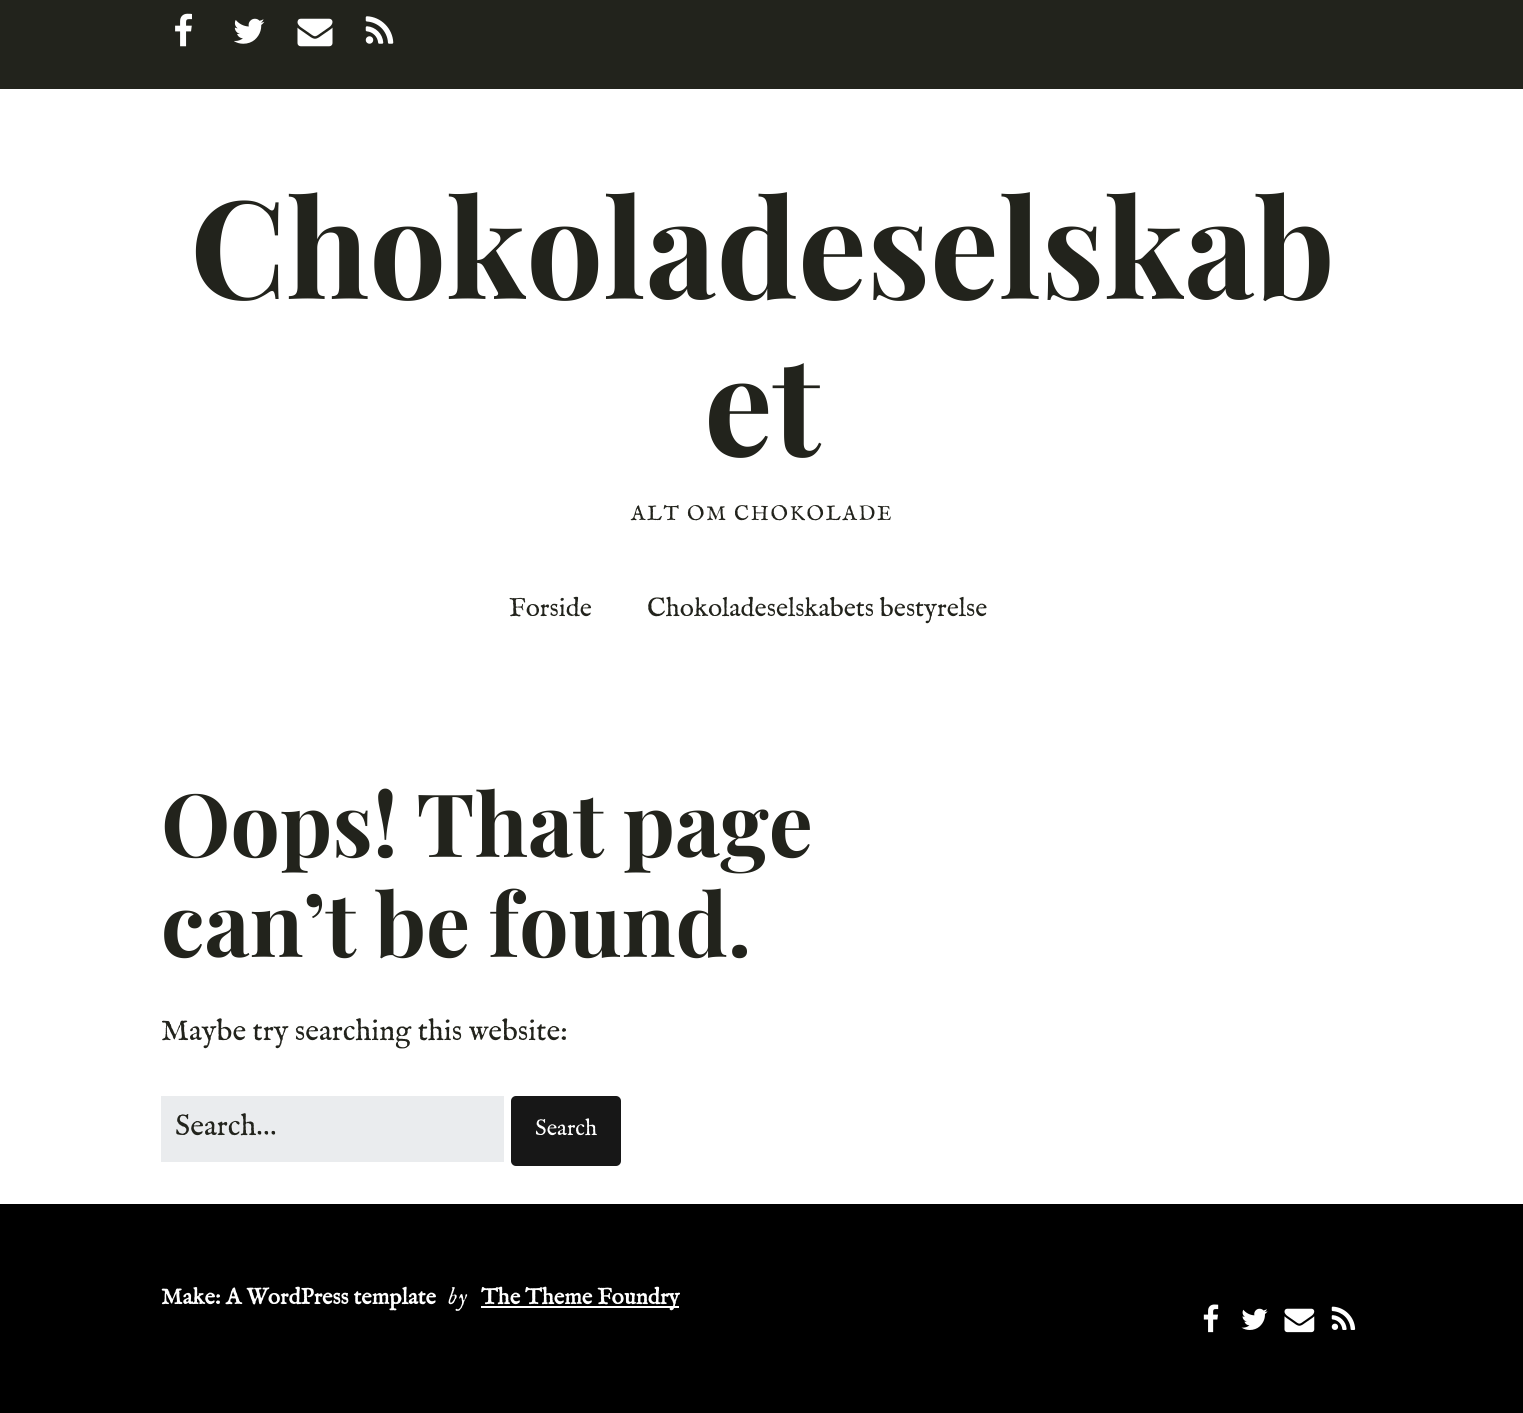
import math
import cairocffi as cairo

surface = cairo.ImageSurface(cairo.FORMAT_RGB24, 1523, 1413)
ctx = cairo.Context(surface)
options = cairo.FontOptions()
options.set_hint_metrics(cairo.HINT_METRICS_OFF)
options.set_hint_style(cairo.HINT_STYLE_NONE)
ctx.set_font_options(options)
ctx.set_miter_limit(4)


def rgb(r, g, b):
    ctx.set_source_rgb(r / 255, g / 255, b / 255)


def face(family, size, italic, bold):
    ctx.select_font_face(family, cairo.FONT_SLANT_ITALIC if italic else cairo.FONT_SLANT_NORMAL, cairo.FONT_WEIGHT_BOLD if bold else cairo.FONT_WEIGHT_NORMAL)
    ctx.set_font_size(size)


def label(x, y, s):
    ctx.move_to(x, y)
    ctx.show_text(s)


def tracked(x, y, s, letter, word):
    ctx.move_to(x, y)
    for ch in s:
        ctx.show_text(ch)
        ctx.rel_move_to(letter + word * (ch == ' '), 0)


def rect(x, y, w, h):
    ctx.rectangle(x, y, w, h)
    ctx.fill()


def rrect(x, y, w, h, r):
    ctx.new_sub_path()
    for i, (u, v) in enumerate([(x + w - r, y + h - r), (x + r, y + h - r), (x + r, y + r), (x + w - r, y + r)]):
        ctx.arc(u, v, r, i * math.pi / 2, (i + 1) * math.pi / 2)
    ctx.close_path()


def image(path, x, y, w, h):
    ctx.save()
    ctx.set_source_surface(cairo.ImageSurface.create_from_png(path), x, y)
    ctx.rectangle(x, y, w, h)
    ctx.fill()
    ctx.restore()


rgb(34, 35, 28)
ctx.paint()
image('image0.png', 175, 13, 17, 34)
image('image1.png', 234, 18, 31, 26)
image('image2.png', 297, 18, 36, 29)
image('image3.png', 365, 16, 29, 28)
rgb(255, 255, 255)
rect(0, 89, 1523, 1115)
face('Playfair Display', 136.5, 0, 1)
rgb(34, 35, 28)
label(190, 299, 'Chokoladeselskab')
label(704, 456, 'et')
face('IM FELL English', 21, 0, 0)
tracked(631, 520, 'ALT OM CHOKOLADE', 1.75, 0)
face('IM FELL English', 26.25, 0, 0)
label(509, 616, 'Forside')
label(647, 616, 'Chokoladeselskabets bestyrelse')
face('Playfair Display', 87.5, 0, 1)
tracked(161, 857, 'Oops! That page', 0, -2)
tracked(161, 957, 'can’t be found.', 0, -2)
face('IM FELL English', 29.75, 0, 0)
label(161, 1040, 'Maybe try searching this website:')
rgb(234, 236, 238)
rect(161, 1096, 343, 66)
rgb(34, 35, 28)
label(175, 1135, 'Search…')
rgb(23, 23, 23)
rrect(511, 1096, 110, 70, 5)
ctx.fill()
face('IM FELL English', 22.75, 0, 0)
rgb(255, 255, 255)
label(535, 1135, 'Search')
rgb(0, 0, 0)
rect(0, 1204, 1523, 209)
face('IM FELL English', 22.75, 0, 1)
rgb(255, 255, 255)
label(161, 1304, 'Make: A WordPress template')
face('IM FELL English', 22.75, 1, 0)
tracked(448, 1304, 'by', 1.75, 0)
rect(481, 1306, 198, 2)
face('IM FELL English', 22.75, 0, 1)
label(481, 1304, 'The Theme Foundry')
image('image4.png', 1203, 1304, 16, 29)
image('image5.png', 1241, 1308, 27, 22)
image('image6.png', 1284, 1308, 31, 25)
image('image7.png', 1331, 1306, 25, 24)
surface.write_to_png('render.png')
